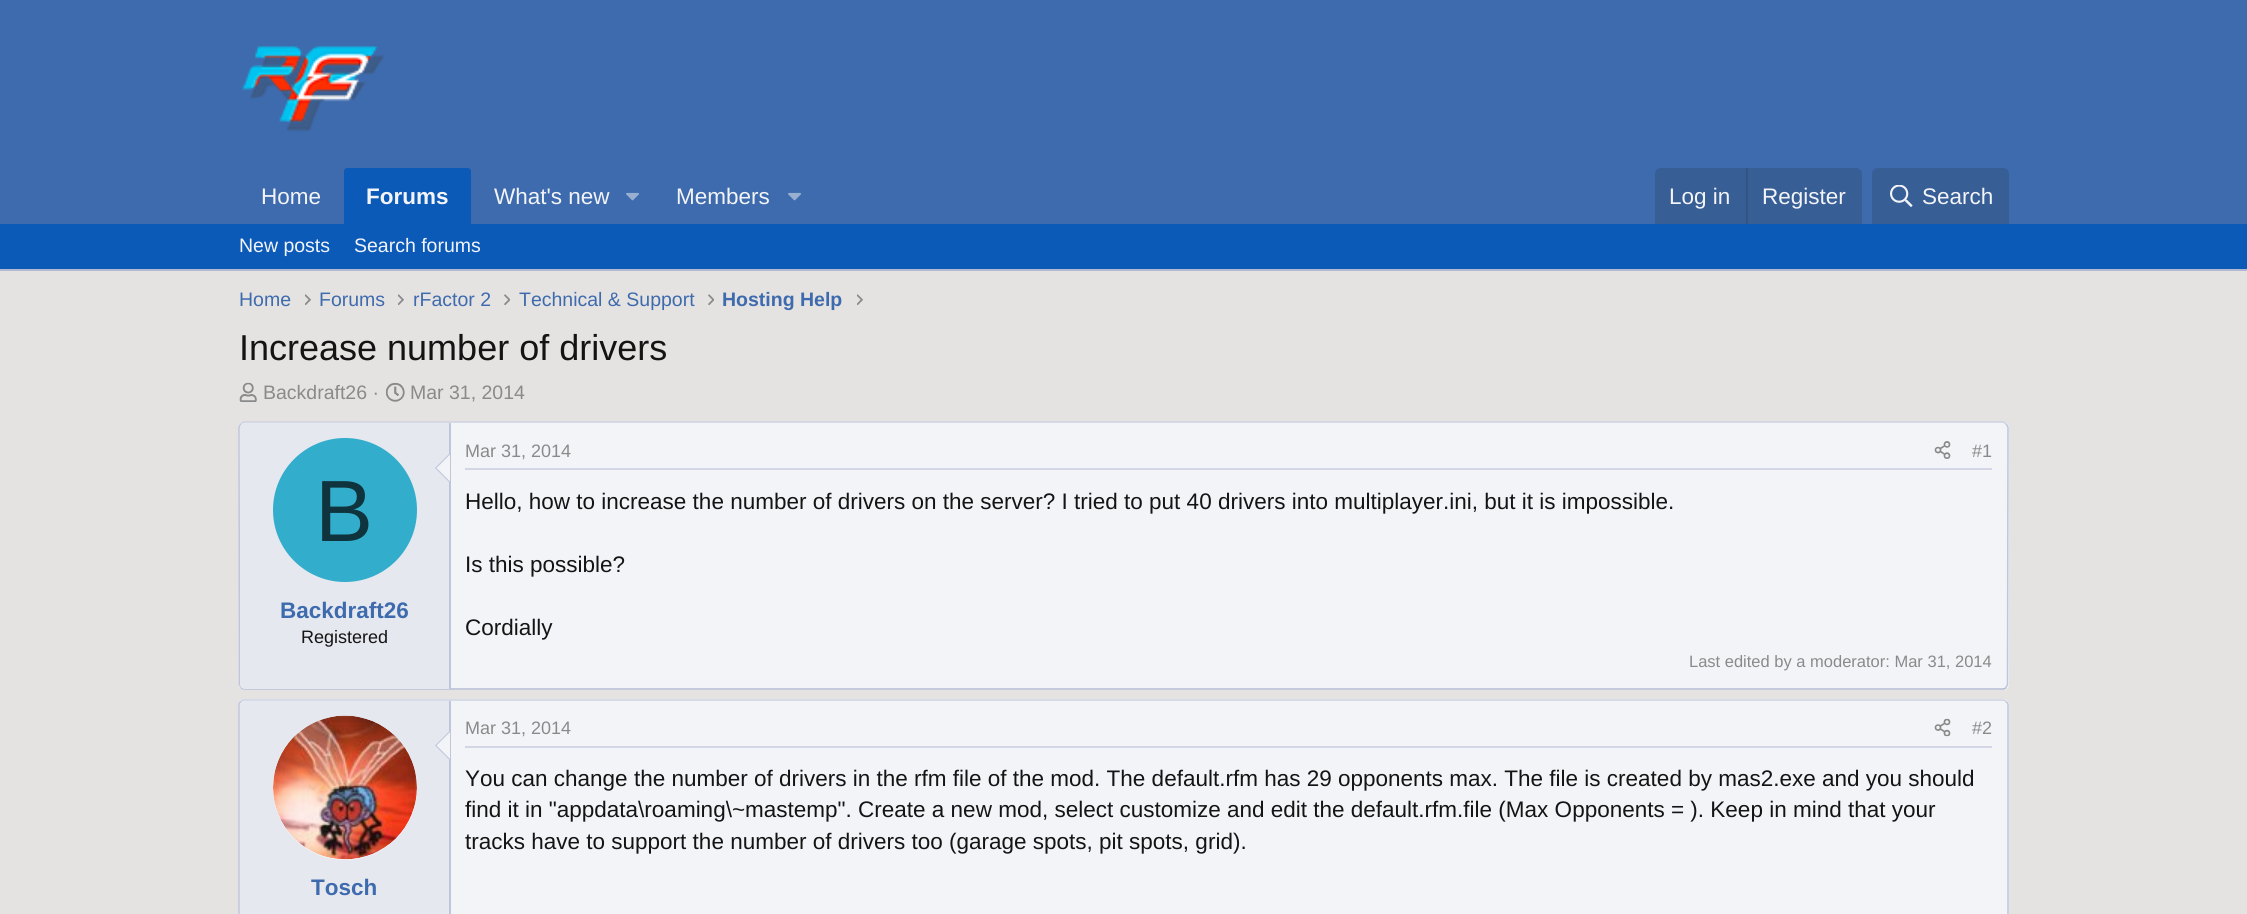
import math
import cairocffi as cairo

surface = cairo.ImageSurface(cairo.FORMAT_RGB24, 2247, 914)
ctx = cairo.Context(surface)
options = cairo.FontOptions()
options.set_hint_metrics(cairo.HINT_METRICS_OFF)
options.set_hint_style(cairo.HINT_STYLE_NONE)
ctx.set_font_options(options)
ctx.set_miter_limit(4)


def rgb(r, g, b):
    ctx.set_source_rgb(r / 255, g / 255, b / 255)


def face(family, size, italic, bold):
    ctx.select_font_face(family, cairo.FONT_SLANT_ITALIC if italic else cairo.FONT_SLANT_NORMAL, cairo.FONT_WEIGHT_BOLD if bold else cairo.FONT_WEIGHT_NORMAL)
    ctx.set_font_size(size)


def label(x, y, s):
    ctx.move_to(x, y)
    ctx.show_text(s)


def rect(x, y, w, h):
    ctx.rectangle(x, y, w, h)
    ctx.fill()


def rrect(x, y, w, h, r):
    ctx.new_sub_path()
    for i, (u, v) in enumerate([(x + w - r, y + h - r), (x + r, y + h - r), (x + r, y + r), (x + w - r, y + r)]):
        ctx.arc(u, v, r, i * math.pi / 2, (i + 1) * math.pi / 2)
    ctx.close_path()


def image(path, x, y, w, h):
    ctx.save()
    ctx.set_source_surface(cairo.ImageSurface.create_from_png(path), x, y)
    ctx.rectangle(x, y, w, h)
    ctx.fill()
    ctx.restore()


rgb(229, 226, 226)
ctx.paint()
rgb(62, 107, 173)
rect(0, 0, 2247, 224)
image('image0.png', 242, 46, 143, 86)
face('Liberation Sans', 22.5, 0, 0)
rgb(243, 244, 248)
label(261, 204, 'Home')
rgb(11, 90, 184)
ctx.new_path()
ctx.move_to(347, 168)
ctx.line_to(468, 168)
ctx.curve_to(469.5, 168, 471, 169.5, 471, 171)
ctx.line_to(471, 224)
ctx.line_to(344, 224)
ctx.line_to(344, 171)
ctx.curve_to(344, 169.5, 345.5, 168, 347, 168)
ctx.close_path()
ctx.fill()
face('Liberation Sans', 22.5, 0, 1)
rgb(243, 244, 248)
label(366, 204, 'Forums')
face('Liberation Sans', 22.5, 0, 0)
label(494, 204, 'What\'s new')
image('image1.png', 626, 192, 13, 9)
label(676, 204, 'Members')
image('image1.png', 788, 192, 13, 9)
rgb(56, 94, 150)
ctx.new_path()
ctx.move_to(1661, 168)
ctx.line_to(1856, 168)
ctx.curve_to(1859.5, 168, 1862, 170.5, 1862, 174)
ctx.line_to(1862, 224)
ctx.line_to(1655, 224)
ctx.line_to(1655, 174)
ctx.curve_to(1655, 170.5, 1657.5, 168, 1661, 168)
ctx.close_path()
ctx.fill()
rgb(243, 244, 248)
label(1669, 204, 'Log in')
rgb(51, 83, 131)
rect(1746, 168, 2, 56)
rgb(243, 244, 248)
label(1762, 204, 'Register')
rgb(56, 94, 150)
ctx.new_path()
ctx.move_to(1878, 168)
ctx.line_to(2003, 168)
ctx.curve_to(2006.5, 168, 2009, 170.5, 2009, 174)
ctx.line_to(2009, 224)
ctx.line_to(1872, 224)
ctx.line_to(1872, 174)
ctx.curve_to(1872, 170.5, 1874.5, 168, 1878, 168)
ctx.close_path()
ctx.fill()
image('image2.png', 1890, 185, 23, 22)
rgb(243, 244, 248)
label(1922, 204, 'Search')
rgb(11, 90, 184)
rect(0, 224, 2247, 45)
rgb(179, 185, 210)
rect(0, 269, 2247, 2)
face('Liberation Sans', 19.5, 0, 0)
rgb(243, 244, 248)
label(239, 252, 'New posts')
label(354, 252, 'Search forums')
rgb(62, 107, 173)
label(239, 306, 'Home')
image('image3.png', 305, 294, 6, 12)
label(319, 306, 'Forums')
image('image3.png', 398, 294, 6, 12)
label(413, 306, 'rFactor 2')
image('image4.png', 504, 294, 6, 12)
label(519, 306, 'Technical & Support')
image('image4.png', 708, 294, 6, 12)
face('Liberation Sans', 19.5, 0, 1)
label(722, 306, 'Hosting Help')
image('image3.png', 857, 294, 6, 12)
face('Liberation Sans', 36, 0, 0)
rgb(20, 20, 20)
label(239, 360, 'Increase number of drivers')
image('image5.png', 239, 382, 18, 20)
face('Liberation Sans', 19.5, 0, 0)
rgb(138, 138, 138)
label(263, 399, 'Backdraft26 ·')
image('image6.png', 386, 382, 19, 20)
label(410, 399, 'Mar 31, 2014')
rgb(243, 244, 248)
rrect(239, 422, 1770, 268, 6)
ctx.fill()
ctx.new_path()
ctx.move_to(241, 424)
ctx.curve_to(242, 423, 243, 422, 244.5, 422)
ctx.line_to(2002.5, 422)
ctx.curve_to(2004, 422, 2005, 423, 2006, 424)
rgb(204, 209, 225)
ctx.set_line_width(1.5)
ctx.stroke()
ctx.new_path()
ctx.move_to(2006, 424)
ctx.curve_to(2007, 425, 2007.5, 426, 2008, 427.5)
ctx.line_to(2007.5, 684.5)
ctx.line_to(2006, 687.5)
rgb(191, 197, 218)
ctx.stroke()
ctx.new_path()
ctx.move_to(2006, 687.5)
ctx.curve_to(2005, 688.5, 2004, 689, 2002.5, 689)
ctx.line_to(244.5, 689)
ctx.curve_to(243, 689, 242, 688.5, 241, 687.5)
rgb(179, 185, 210)
ctx.stroke()
ctx.new_path()
ctx.move_to(241, 687.5)
ctx.line_to(239.5, 684.5)
ctx.line_to(239, 427.5)
ctx.curve_to(239.5, 426, 240, 425, 241, 424)
rgb(191, 197, 218)
ctx.stroke()
rgb(230, 232, 240)
ctx.new_path()
ctx.move_to(245, 423)
ctx.line_to(450, 423)
ctx.line_to(450, 689)
ctx.line_to(245, 689)
ctx.curve_to(242, 689, 240, 687, 240, 684)
ctx.line_to(240, 428)
ctx.curve_to(240, 425, 242, 423, 245, 423)
ctx.close_path()
ctx.fill()
rgb(191, 197, 218)
rect(449, 423, 2, 266)
ctx.new_path()
ctx.move_to(450, 453)
ctx.line_to(450, 483)
ctx.line_to(435, 468)
ctx.close_path()
ctx.fill()
rgb(243, 244, 248)
ctx.new_path()
ctx.move_to(450, 454.5)
ctx.line_to(450, 481.5)
ctx.line_to(436.5, 468)
ctx.close_path()
ctx.fill()
rgb(51, 173, 204)
ctx.arc(345, 510, 72, 0, 2 * math.pi)
ctx.fill()
face('Liberation Sans', 87, 0, 0)
rgb(15, 52, 61)
label(315, 541, 'B')
face('Liberation Sans', 22.5, 0, 1)
rgb(62, 107, 173)
label(280, 618, 'Backdraft26')
face('Liberation Sans', 18, 0, 0)
rgb(20, 20, 20)
label(301, 643, 'Registered')
rgb(211, 214, 229)
rect(465, 468, 1527, 2)
rgb(138, 138, 138)
label(465, 457, 'Mar 31, 2014')
image('image7.png', 1934, 441, 17, 18)
label(1972, 457, '#1')
face('Liberation Sans', 22.5, 0, 0)
rgb(20, 20, 20)
label(465, 509, 'Hello, how to increase the number of drivers on the server? I tried to put 40 drivers into multiplayer.ini, but it is impossible.')
label(465, 572, 'Is this possible?')
label(465, 635, 'Cordially')
face('Liberation Sans', 16.5, 0, 0)
rgb(138, 138, 138)
label(1689, 667, 'Last edited by a moderator: Mar 31, 2014')
rgb(243, 244, 248)
rrect(239, 699, 1770, 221, 6)
ctx.fill()
ctx.new_path()
ctx.move_to(241, 701.5)
ctx.curve_to(242, 700.5, 243, 700, 244.5, 700)
ctx.line_to(2002.5, 700)
ctx.curve_to(2004, 700, 2005, 700.5, 2006, 701.5)
rgb(204, 209, 225)
ctx.stroke()
ctx.new_path()
ctx.move_to(2006, 701.5)
ctx.curve_to(2007, 702.5, 2008, 703.5, 2008, 705)
ctx.line_to(2008, 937.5)
ctx.curve_to(2008, 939, 2007, 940, 2006, 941)
rgb(191, 197, 218)
ctx.stroke()
ctx.new_path()
ctx.move_to(241, 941)
ctx.curve_to(240, 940, 239, 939, 239, 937.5)
ctx.line_to(239, 705)
ctx.curve_to(239, 703.5, 240, 702.5, 241, 701.5)
ctx.stroke()
rgb(211, 214, 229)
rect(465, 746, 1527, 2)
face('Liberation Sans', 18, 0, 0)
rgb(138, 138, 138)
label(465, 734, 'Mar 31, 2014')
image('image8.png', 1934, 718, 17, 19)
label(1972, 734, '#2')
face('Liberation Sans', 22.5, 0, 0)
rgb(20, 20, 20)
label(465, 786, 'You can change the number of drivers in the rfm file of the mod. The default.rfm has 29 opponents max. The file is created by mas2.exe and you should')
label(465, 817, 'find it in "appdata\\roaming\\~mastemp". Create a new mod, select customize and edit the default.rfm.file (Max Opponents = ). Keep in mind that your')
label(465, 849, 'tracks have to support the number of drivers too (garage spots, pit spots, grid).')
rgb(230, 232, 240)
ctx.new_path()
ctx.move_to(245, 701)
ctx.line_to(450, 701)
ctx.line_to(450, 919)
ctx.line_to(245, 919)
ctx.curve_to(242, 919, 240, 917, 240, 914)
ctx.line_to(240, 706)
ctx.curve_to(240, 703, 242, 701, 245, 701)
ctx.close_path()
ctx.fill()
rgb(191, 197, 218)
rect(449, 701, 2, 213)
rgb(243, 244, 248)
ctx.arc(345, 788, 72, 0, 2 * math.pi)
ctx.fill()
image('image9.png', 273, 715, 144, 145)
rgb(191, 197, 218)
ctx.new_path()
ctx.move_to(450, 730.5)
ctx.line_to(450, 760.5)
ctx.line_to(435, 745.5)
ctx.close_path()
ctx.fill()
rgb(243, 244, 248)
ctx.new_path()
ctx.move_to(450, 732)
ctx.line_to(450, 759)
ctx.line_to(436.5, 745.5)
ctx.close_path()
ctx.fill()
face('Liberation Sans', 22.5, 0, 1)
rgb(62, 107, 173)
label(311, 895, 'Tosch')
surface.write_to_png('render.png')
